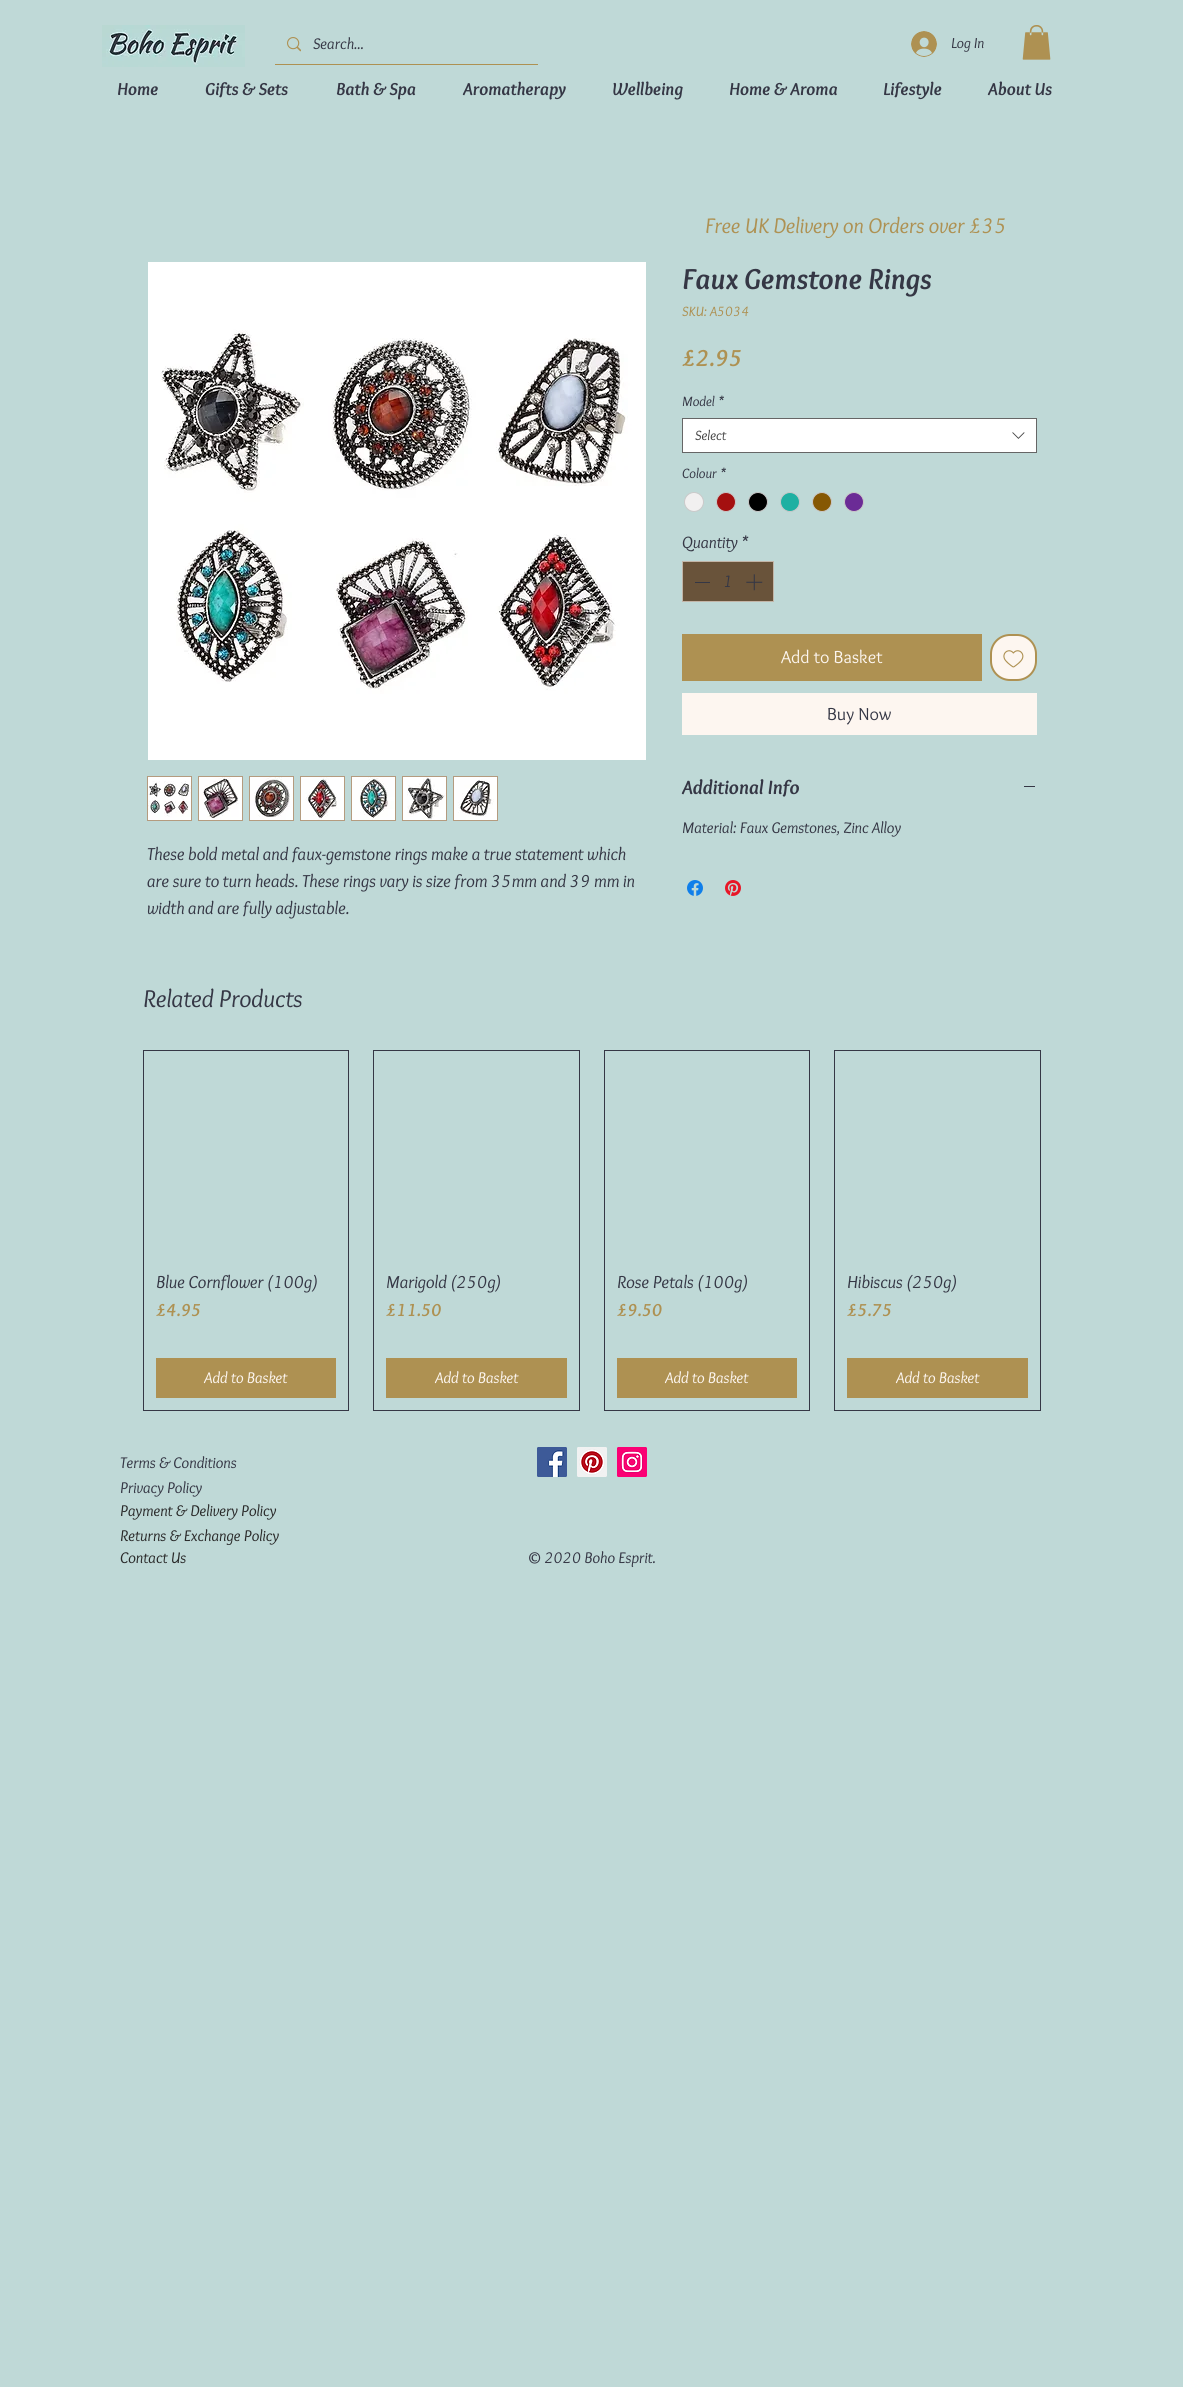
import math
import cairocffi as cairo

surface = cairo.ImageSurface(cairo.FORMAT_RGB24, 1183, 2387)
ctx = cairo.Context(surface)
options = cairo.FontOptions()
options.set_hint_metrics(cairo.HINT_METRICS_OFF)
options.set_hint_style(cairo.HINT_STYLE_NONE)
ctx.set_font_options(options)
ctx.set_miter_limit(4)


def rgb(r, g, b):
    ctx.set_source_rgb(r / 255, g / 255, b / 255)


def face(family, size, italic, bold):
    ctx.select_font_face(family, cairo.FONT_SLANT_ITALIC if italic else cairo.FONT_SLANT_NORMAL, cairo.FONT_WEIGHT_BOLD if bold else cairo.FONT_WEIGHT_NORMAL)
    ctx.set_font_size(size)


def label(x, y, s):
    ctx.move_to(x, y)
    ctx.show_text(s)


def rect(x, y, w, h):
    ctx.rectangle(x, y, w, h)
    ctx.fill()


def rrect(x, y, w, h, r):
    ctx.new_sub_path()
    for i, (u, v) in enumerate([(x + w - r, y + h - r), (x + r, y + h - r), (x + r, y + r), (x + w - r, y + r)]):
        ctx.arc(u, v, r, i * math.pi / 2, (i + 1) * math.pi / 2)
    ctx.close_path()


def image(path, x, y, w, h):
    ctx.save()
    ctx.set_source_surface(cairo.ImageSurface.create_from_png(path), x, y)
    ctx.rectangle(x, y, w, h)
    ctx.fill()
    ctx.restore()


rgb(191, 217, 215)
ctx.paint()
image('image0.png', 102, 25, 143, 42)
rgb(174, 145, 82)
rect(275, 64, 263, 1)
image('image1.png', 287, 37, 14, 15)
face('Overlock', 16, 1, 0)
rgb(53, 55, 69)
label(313, 49, 'Search...')
image('image2.png', 911, 31, 26, 26)
face('Overlock', 15, 1, 0)
label(951, 48, 'Log In')
image('image3.png', 1022, 25, 29, 35)
face('Overlock', 18, 1, 1)
label(117, 95, 'Home')
label(205, 95, 'Gifts & Sets')
label(336, 95, 'Bath & Spa')
label(463, 95, 'Aromatherapy')
label(612, 95, 'Wellbeing')
label(729, 95, 'Home & Aroma')
label(883, 95, 'Lifestyle')
label(988, 95, 'About Us')
face('Overlock', 22, 1, 0)
rgb(174, 145, 82)
label(705, 233, 'Free UK Delivery on Orders over £35')
face('Overlock', 30, 1, 1)
rgb(53, 55, 69)
label(682, 289, 'Faux Gemstone Rings')
face('Overlock', 14, 1, 0)
rgb(174, 145, 82)
label(682, 316, 'SKU: A5034')
face('Overlock', 24, 1, 1)
label(682, 366, '£2.95')
face('Overlock', 14, 1, 0)
rgb(53, 55, 69)
label(682, 406, 'Model')
label(718, 406, '*')
rgb(255, 255, 255)
ctx.rectangle(682.5, 418.5, 354, 34)
ctx.fill_preserve()
rgb(102, 102, 102)
ctx.set_line_width(1)
ctx.stroke()
rgb(68, 68, 68)
label(695, 440, 'Select')
image('image4.png', 1012, 432, 13, 7)
rgb(53, 55, 69)
label(682, 478, 'Colour')
label(720, 478, '*')
rgb(241, 240, 240)
ctx.new_path()
ctx.arc(694, 502, 9.5, 0, 2 * math.pi)
ctx.fill_preserve()
rgb(201, 201, 201)
ctx.stroke()
rgb(164, 16, 16)
ctx.arc(726, 502, 9.5, 0, 2 * math.pi)
ctx.fill_preserve()
rgb(201, 201, 201)
ctx.stroke()
rgb(0, 0, 0)
ctx.arc(758, 502, 9.5, 0, 2 * math.pi)
ctx.fill_preserve()
rgb(201, 201, 201)
ctx.stroke()
rgb(31, 176, 162)
ctx.arc(790, 502, 9.5, 0, 2 * math.pi)
ctx.fill_preserve()
rgb(201, 201, 201)
ctx.stroke()
rgb(134, 88, 3)
ctx.arc(822, 502, 9.5, 0, 2 * math.pi)
ctx.fill_preserve()
rgb(201, 201, 201)
ctx.stroke()
rgb(107, 43, 150)
ctx.arc(854, 502, 9.5, 0, 2 * math.pi)
ctx.fill_preserve()
rgb(201, 201, 201)
ctx.stroke()
face('Overlock', 17, 1, 0)
rgb(53, 55, 69)
label(682, 548, 'Quantity')
label(741, 548, '*')
rgb(105, 83, 58)
ctx.rectangle(682.5, 561.5, 91, 40)
ctx.fill_preserve()
rgb(194, 181, 167)
ctx.stroke()
rgb(53, 55, 69)
rect(695, 582, 15, 1)
label(723, 587, '1')
image('image5.png', 746, 574, 17, 17)
rgb(174, 145, 82)
rect(682, 634, 300, 47)
face('Overlock', 18, 0, 0)
rgb(253, 246, 240)
label(781, 663, 'Add to Basket')
rrect(991, 635, 45, 45, 19)
ctx.fill_preserve()
rgb(174, 145, 82)
ctx.set_line_width(2)
ctx.stroke()
image('image6.png', 1003, 650, 21, 18)
rgb(253, 246, 240)
rect(682, 693, 355, 42)
rgb(53, 55, 69)
label(827, 720, 'Buy Now')
face('Overlock', 20, 1, 1)
label(682, 794, 'Additional Info')
rect(1024, 786, 11, 1)
face('Overlock', 16, 1, 0)
label(682, 833, 'Material: Faux Gemstones, Zinc Alloy')
image('image7.png', 687, 880, 16, 16)
image('image8.png', 725, 880, 16, 16)
image('image9.png', 148, 262, 498, 498)
rgb(180, 155, 127)
rect(147, 776, 45, 45)
image('image10.png', 148, 777, 43, 43)
rect(198, 776, 45, 45)
image('image11.png', 199, 777, 43, 43)
rect(249, 776, 45, 45)
image('image12.png', 250, 777, 43, 43)
rect(300, 776, 45, 45)
image('image13.png', 301, 777, 43, 43)
rect(351, 776, 45, 45)
image('image14.png', 352, 777, 43, 43)
rect(402, 776, 45, 45)
image('image15.png', 403, 777, 43, 43)
rect(453, 776, 45, 45)
image('image16.png', 454, 777, 43, 43)
face('Overlock', 18, 1, 0)
rgb(53, 55, 69)
label(147, 860, 'These bold metal and faux-gemstone rings make a true statement which')
label(147, 887, 'are sure to turn heads. These rings vary is size from 35mm and 39 mm in')
label(147, 914, 'width and are fully adjustable.')
face('Overlock', 25, 1, 0)
label(143, 1007, 'Related Products')
ctx.rectangle(143.5, 1050.5, 205, 360)
ctx.set_line_width(1)
ctx.stroke()
face('Overlock', 18, 1, 0)
label(156, 1288, 'Blue Cornflower (100g)')
face('Overlock', 18, 1, 1)
rgb(174, 145, 82)
label(156, 1316, '£4.95')
rect(156, 1358, 180, 40)
face('Overlock', 16, 1, 0)
rgb(253, 246, 240)
label(204, 1383, 'Add to Basket')
ctx.rectangle(373.5, 1050.5, 206, 360)
rgb(53, 55, 69)
ctx.stroke()
face('Overlock', 18, 1, 0)
label(386, 1288, 'Marigold (250g)')
face('Overlock', 18, 1, 1)
rgb(174, 145, 82)
label(386, 1316, '£11.50')
rect(386, 1358, 181, 40)
face('Overlock', 16, 1, 0)
rgb(253, 246, 240)
label(435, 1383, 'Add to Basket')
ctx.rectangle(604.5, 1050.5, 205, 360)
rgb(53, 55, 69)
ctx.stroke()
face('Overlock', 18, 1, 0)
label(617, 1288, 'Rose Petals (100g)')
face('Overlock', 18, 1, 1)
rgb(174, 145, 82)
label(617, 1316, '£9.50')
rect(617, 1358, 180, 40)
face('Overlock', 16, 1, 0)
rgb(253, 246, 240)
label(665, 1383, 'Add to Basket')
ctx.rectangle(834.5, 1050.5, 206, 360)
rgb(53, 55, 69)
ctx.stroke()
face('Overlock', 18, 1, 0)
label(847, 1288, 'Hibiscus (250g)')
face('Overlock', 18, 1, 1)
rgb(174, 145, 82)
label(847, 1316, '£5.75')
rect(847, 1358, 181, 40)
face('Overlock', 16, 1, 0)
rgb(253, 246, 240)
label(896, 1383, 'Add to Basket')
rgb(53, 55, 69)
label(120, 1468, 'Terms & Conditions')
image('image17.png', 537, 1447, 30, 30)
image('image18.png', 577, 1447, 30, 30)
image('image19.png', 617, 1447, 30, 30)
label(120, 1493, 'Privacy Policy')
rgb(41, 41, 41)
label(120, 1516, 'Payment & Delivery Policy')
label(120, 1541, 'Returns & Exchange Policy')
label(120, 1563, 'Contact Us')
rgb(53, 55, 69)
label(527, 1563, '© 2020 Boho Esprit.')
surface.write_to_png('render.png')
